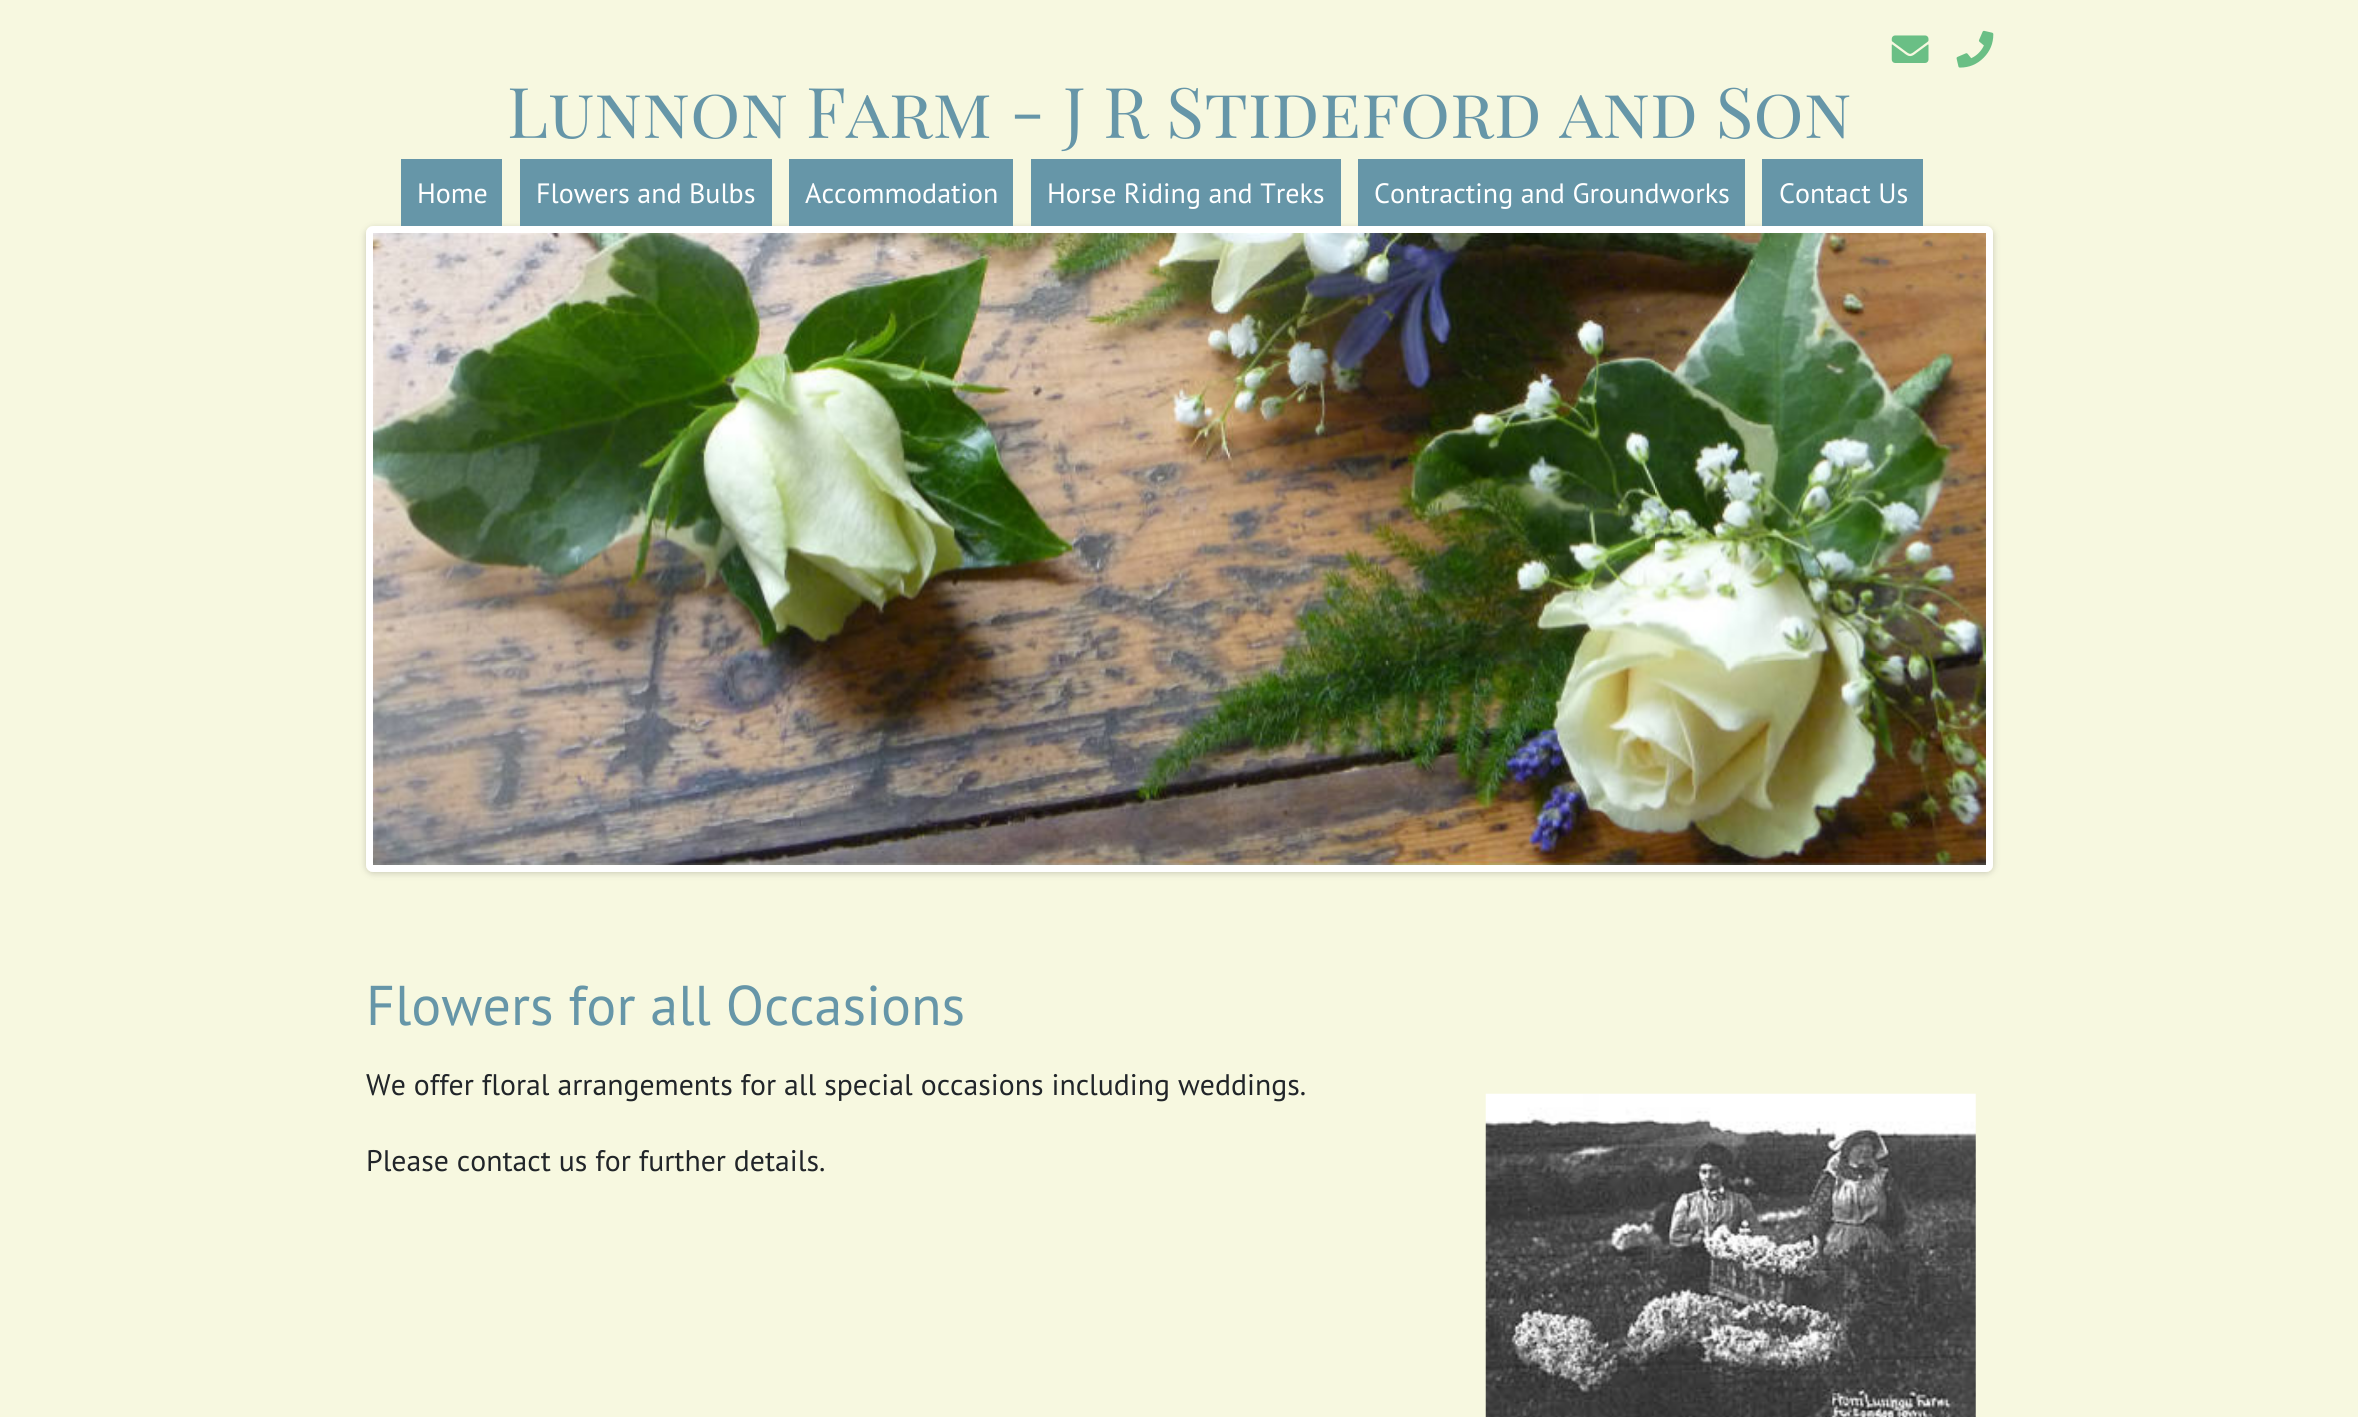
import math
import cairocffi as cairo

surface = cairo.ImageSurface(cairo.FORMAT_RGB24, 2358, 1417)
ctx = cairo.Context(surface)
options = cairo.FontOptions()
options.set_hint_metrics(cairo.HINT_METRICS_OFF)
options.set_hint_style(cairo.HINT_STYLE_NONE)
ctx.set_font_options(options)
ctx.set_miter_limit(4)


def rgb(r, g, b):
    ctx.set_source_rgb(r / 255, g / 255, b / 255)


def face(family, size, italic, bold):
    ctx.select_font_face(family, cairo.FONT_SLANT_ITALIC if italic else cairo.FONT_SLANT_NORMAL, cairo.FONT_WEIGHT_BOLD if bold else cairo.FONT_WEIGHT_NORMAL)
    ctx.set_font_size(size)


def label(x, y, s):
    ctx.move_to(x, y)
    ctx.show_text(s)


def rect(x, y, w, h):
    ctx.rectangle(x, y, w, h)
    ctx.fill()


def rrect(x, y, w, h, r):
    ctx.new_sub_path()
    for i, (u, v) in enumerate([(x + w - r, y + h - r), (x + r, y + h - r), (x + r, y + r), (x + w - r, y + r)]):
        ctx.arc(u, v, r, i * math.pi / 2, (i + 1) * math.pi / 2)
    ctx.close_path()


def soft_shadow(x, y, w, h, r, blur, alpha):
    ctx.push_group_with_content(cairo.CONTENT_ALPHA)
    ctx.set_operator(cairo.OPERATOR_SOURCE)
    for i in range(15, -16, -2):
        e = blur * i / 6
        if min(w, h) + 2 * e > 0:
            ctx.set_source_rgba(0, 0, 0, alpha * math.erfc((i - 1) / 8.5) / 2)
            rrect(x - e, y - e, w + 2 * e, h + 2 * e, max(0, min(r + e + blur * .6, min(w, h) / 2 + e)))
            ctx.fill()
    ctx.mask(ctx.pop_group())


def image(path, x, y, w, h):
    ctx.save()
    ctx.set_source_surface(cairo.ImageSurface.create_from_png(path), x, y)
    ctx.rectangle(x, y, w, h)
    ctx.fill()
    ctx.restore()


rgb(247, 248, 224)
ctx.paint()
image('image0.png', 1891, 35, 38, 28)
image('image1.png', 1956, 30, 38, 38)
face('Playfair Display SC', 70, 0, 0)
rgb(102, 150, 168)
label(507, 138, 'Lunnon Farm - J R Stideford and Son')
ctx.save()
ctx.set_fill_rule(cairo.FILL_RULE_EVEN_ODD)
ctx.new_path()
ctx.move_to(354, 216)
ctx.line_to(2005, 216)
ctx.line_to(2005, 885)
ctx.line_to(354, 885)
ctx.close_path()
ctx.move_to(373, 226)
ctx.line_to(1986, 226)
ctx.curve_to(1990, 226, 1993, 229, 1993, 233)
ctx.line_to(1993, 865)
ctx.curve_to(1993, 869, 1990, 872, 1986, 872)
ctx.line_to(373, 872)
ctx.curve_to(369, 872, 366, 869, 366, 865)
ctx.line_to(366, 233)
ctx.curve_to(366, 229, 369, 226, 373, 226)
ctx.close_path()
ctx.clip()
rgb(0, 0, 0)
soft_shadow(366, 228, 1627, 645, 7, 3.5, 0.2)
ctx.restore()
rect(401, 159, 101, 67)
face('PT Sans', 28, 0, 0)
rgb(255, 255, 255)
label(417, 203, 'Home')
rgb(102, 150, 168)
rect(520, 159, 252, 67)
rgb(255, 255, 255)
label(536, 203, 'Flowers and Bulbs')
rgb(102, 150, 168)
rect(789, 159, 224, 67)
rgb(255, 255, 255)
label(805, 203, 'Accommodation')
rgb(102, 150, 168)
rect(1031, 159, 310, 67)
rgb(255, 255, 255)
label(1047, 203, 'Horse Riding and Treks')
rgb(102, 150, 168)
rect(1358, 159, 387, 67)
rgb(255, 255, 255)
label(1374, 203, 'Contracting and Groundworks')
rgb(102, 150, 168)
rect(1762, 159, 161, 67)
rgb(255, 255, 255)
label(1779, 203, 'Contact Us')
rrect(369.5, 229.5, 1620, 639, 3.5)
ctx.set_line_width(7)
ctx.stroke()
image('image2.png', 373, 233, 1613, 632)
face('PT Sans', 56, 0, 0)
rgb(102, 150, 168)
label(366, 1025, 'Flowers for all Occasions')
face('PT Sans', 29.75, 0, 0)
rgb(33, 37, 41)
label(366, 1095, 'We offer floral arrangements for all special occasions including weddings.')
label(366, 1171, 'Please contact us for further details.')
image('image3.png', 1485, 1093, 491, 324)
surface.write_to_png('render.png')
